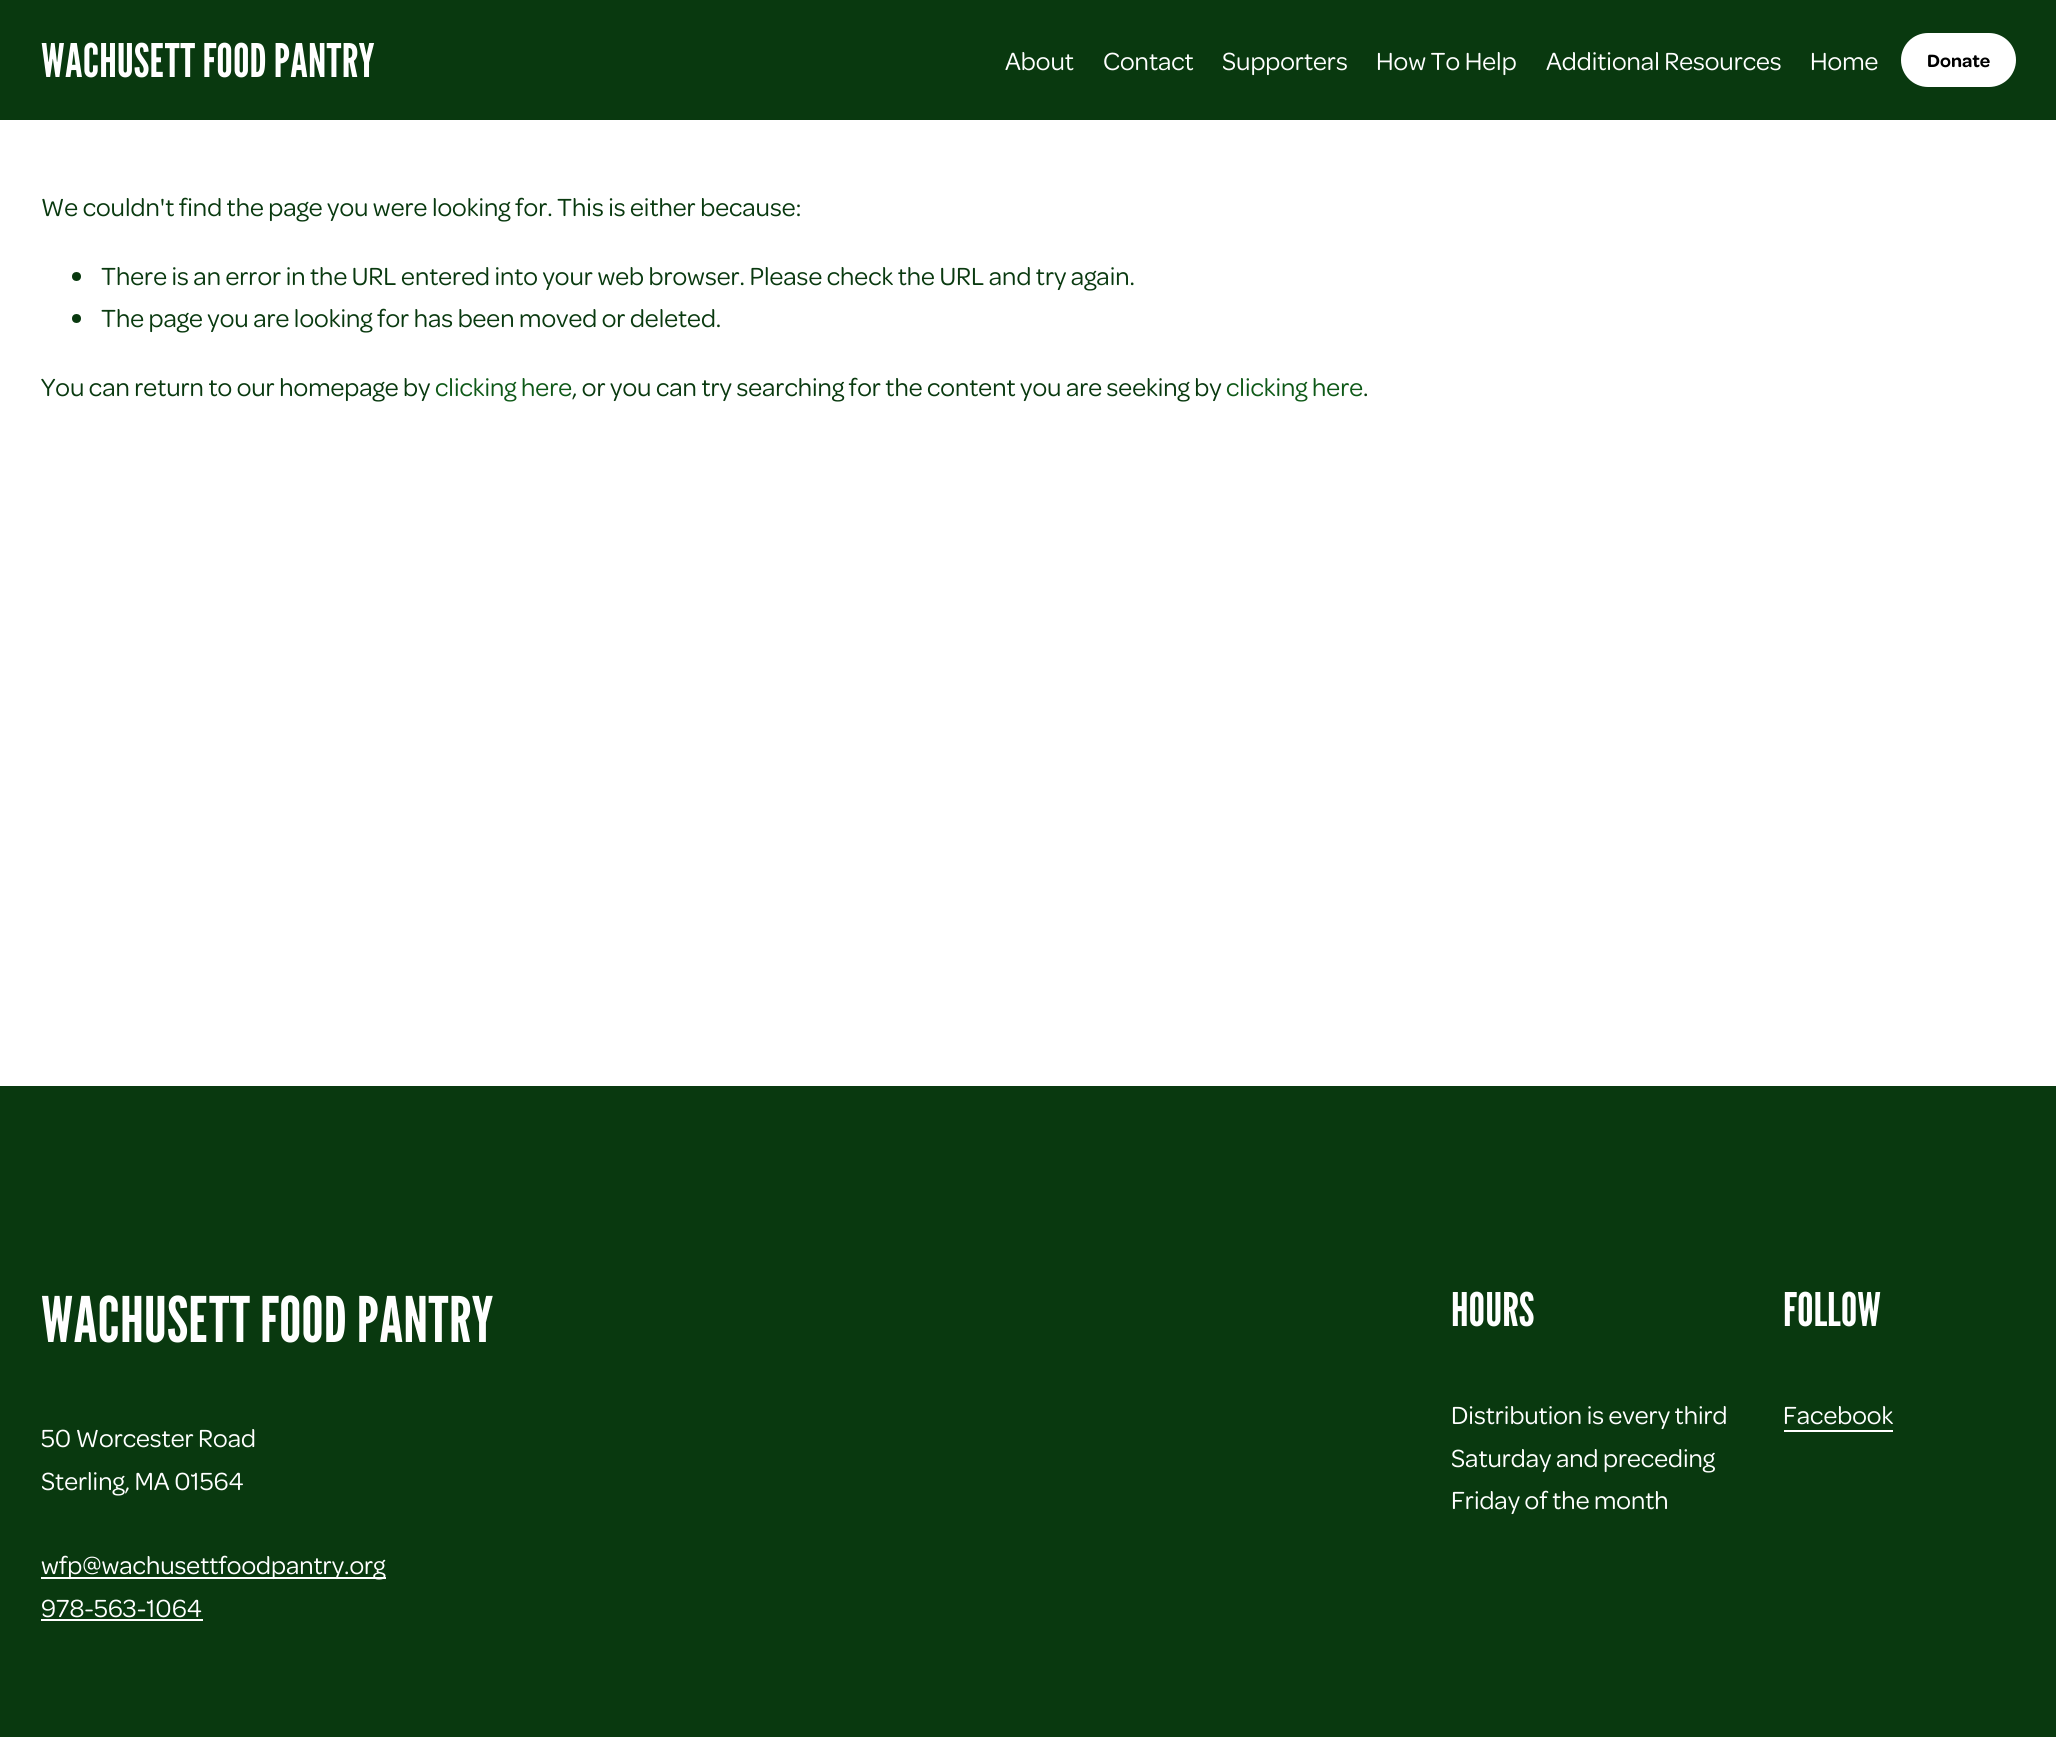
import math
import cairocffi as cairo

surface = cairo.ImageSurface(cairo.FORMAT_RGB24, 2056, 1737)
ctx = cairo.Context(surface)
options = cairo.FontOptions()
options.set_hint_metrics(cairo.HINT_METRICS_OFF)
options.set_hint_style(cairo.HINT_STYLE_NONE)
ctx.set_font_options(options)
ctx.set_miter_limit(4)


def rgb(r, g, b):
    ctx.set_source_rgb(r / 255, g / 255, b / 255)


def face(family, size, italic, bold):
    ctx.select_font_face(family, cairo.FONT_SLANT_ITALIC if italic else cairo.FONT_SLANT_NORMAL, cairo.FONT_WEIGHT_BOLD if bold else cairo.FONT_WEIGHT_NORMAL)
    ctx.set_font_size(size)


def label(x, y, s):
    ctx.move_to(x, y)
    ctx.show_text(s)


def rect(x, y, w, h):
    ctx.rectangle(x, y, w, h)
    ctx.fill()


def rrect(x, y, w, h, r):
    ctx.new_sub_path()
    for i, (u, v) in enumerate([(x + w - r, y + h - r), (x + r, y + h - r), (x + r, y + r), (x + w - r, y + r)]):
        ctx.arc(u, v, r, i * math.pi / 2, (i + 1) * math.pi / 2)
    ctx.close_path()


rgb(255, 255, 255)
ctx.paint()
rgb(9, 57, 15)
rect(0, 0, 2056, 120)
face('League Gothic', 46.25, 0, 0)
rgb(255, 255, 255)
label(41, 77, 'WACHUSETT FOOD PANTRY')
face('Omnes', 26.45, 0, 0)
label(1005, 70, 'About')
label(1103, 70, 'Contact')
label(1222, 70, 'Supporters')
label(1376, 70, 'How To Help')
label(1546, 70, 'Additional Resources')
label(1810, 70, 'Home')
rrect(1901, 33, 115, 54, 27)
ctx.fill()
face('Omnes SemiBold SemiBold', 19, 0, 0)
rgb(0, 0, 0)
label(1927, 67, 'Donate')
face('Omnes', 26.45, 0, 0)
rgb(9, 57, 15)
label(41, 216, 'We couldn\'t find the page you were looking for. This is either because:')
ctx.new_path()
ctx.arc(76.5, 276.5, 4.5, 0, 2 * math.pi)
ctx.fill()
label(101, 285, 'There is an error in the URL entered into your web browser. Please check the URL and try again.')
ctx.new_path()
ctx.arc(76.5, 318.5, 4.5, 0, 2 * math.pi)
ctx.fill()
label(101, 327, 'The page you are looking for has been moved or deleted.')
label(41, 396, 'You can return to our homepage by')
rgb(14, 89, 23)
label(435, 396, 'clicking here')
rgb(9, 57, 15)
label(572, 396, ', or you can try searching for the')
label(927, 396, 'content you are seeking by')
rgb(14, 89, 23)
label(1226, 396, 'clicking here')
rgb(9, 57, 15)
label(1363, 396, '.')
rect(0, 1086, 2056, 651)
face('League Gothic', 62.75, 0, 0)
rgb(255, 255, 255)
label(41, 1342, 'WACHUSETT FOOD PANTRY')
face('Omnes', 26.45, 0, 0)
label(41, 1447, '50 Worcester Road')
label(41, 1490, 'Sterling, MA 01564')
rect(41, 1577, 345, 2)
label(41, 1574, 'wfp@wachusettfoodpantry.org')
label(41, 1617, '978-563-1064')
rect(41, 1619, 162, 2)
face('League Gothic', 46.25, 0, 0)
label(1451, 1326, 'HOURS')
face('Omnes', 26.45, 0, 0)
label(1451, 1424, 'Distribution is every third')
label(1451, 1467, 'Saturday and preceding')
label(1451, 1509, 'Friday of the month')
face('League Gothic', 46.25, 0, 0)
label(1783, 1326, 'FOLLOW')
face('Omnes', 26.45, 0, 0)
label(1783, 1424, 'Facebook')
rect(1784, 1430, 109, 2)
surface.write_to_png('render.png')
